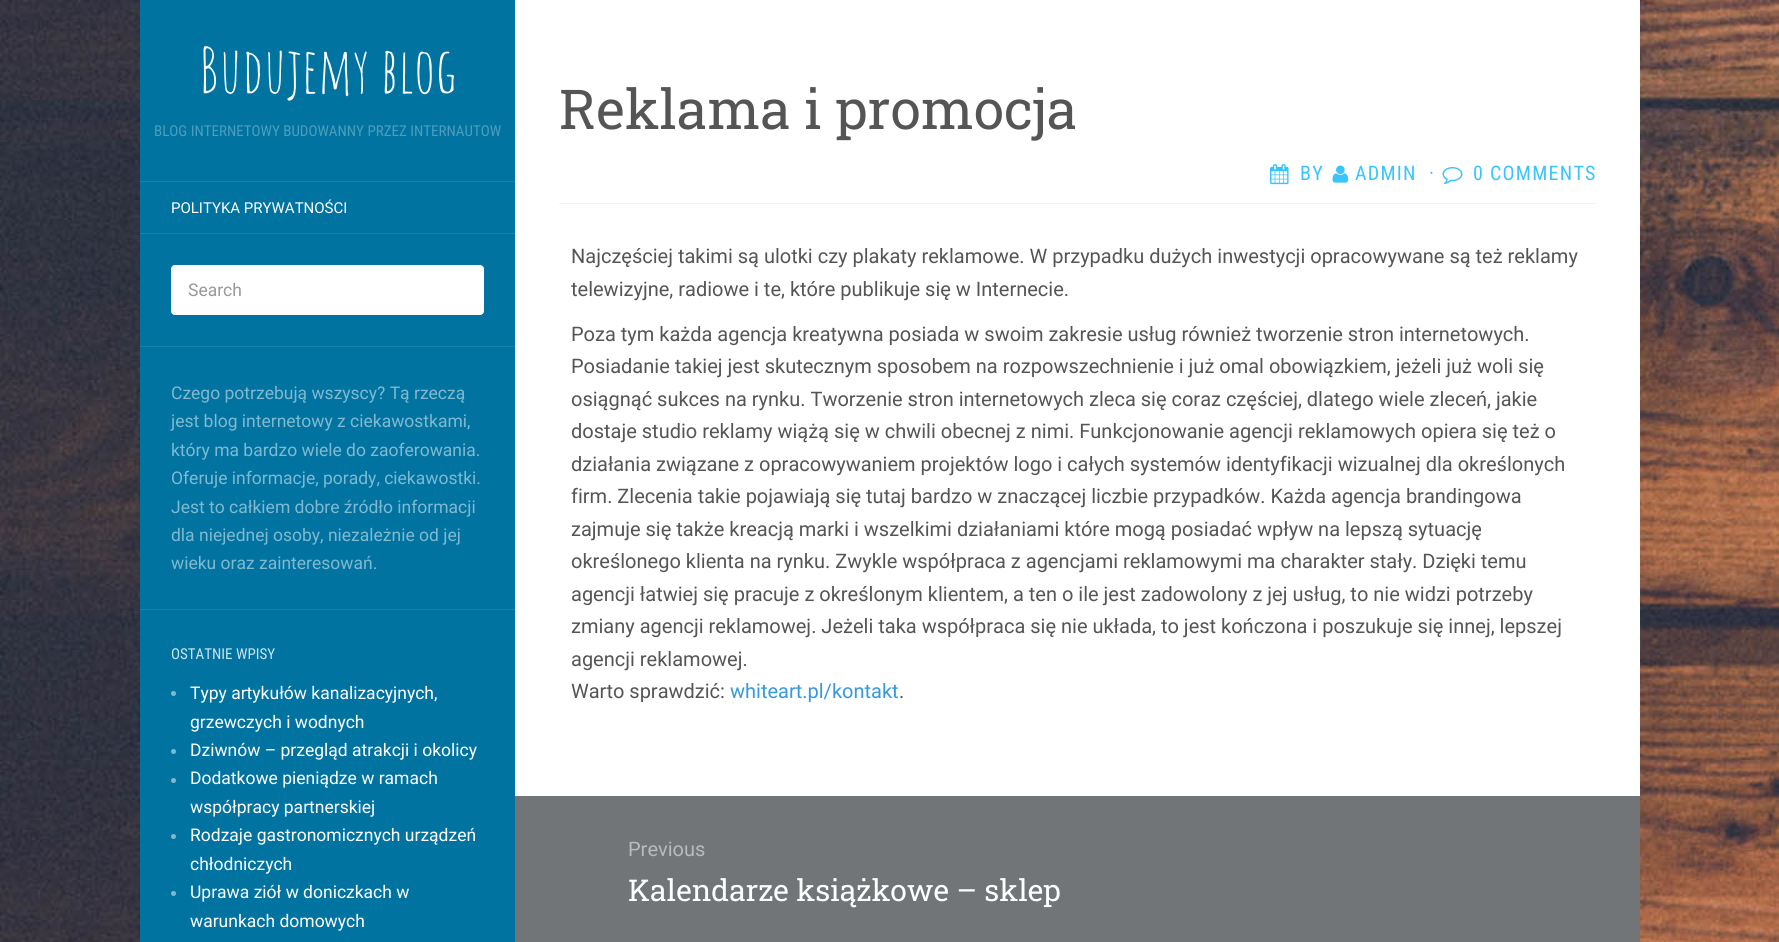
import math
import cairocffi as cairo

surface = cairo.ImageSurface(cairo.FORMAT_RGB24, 1779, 942)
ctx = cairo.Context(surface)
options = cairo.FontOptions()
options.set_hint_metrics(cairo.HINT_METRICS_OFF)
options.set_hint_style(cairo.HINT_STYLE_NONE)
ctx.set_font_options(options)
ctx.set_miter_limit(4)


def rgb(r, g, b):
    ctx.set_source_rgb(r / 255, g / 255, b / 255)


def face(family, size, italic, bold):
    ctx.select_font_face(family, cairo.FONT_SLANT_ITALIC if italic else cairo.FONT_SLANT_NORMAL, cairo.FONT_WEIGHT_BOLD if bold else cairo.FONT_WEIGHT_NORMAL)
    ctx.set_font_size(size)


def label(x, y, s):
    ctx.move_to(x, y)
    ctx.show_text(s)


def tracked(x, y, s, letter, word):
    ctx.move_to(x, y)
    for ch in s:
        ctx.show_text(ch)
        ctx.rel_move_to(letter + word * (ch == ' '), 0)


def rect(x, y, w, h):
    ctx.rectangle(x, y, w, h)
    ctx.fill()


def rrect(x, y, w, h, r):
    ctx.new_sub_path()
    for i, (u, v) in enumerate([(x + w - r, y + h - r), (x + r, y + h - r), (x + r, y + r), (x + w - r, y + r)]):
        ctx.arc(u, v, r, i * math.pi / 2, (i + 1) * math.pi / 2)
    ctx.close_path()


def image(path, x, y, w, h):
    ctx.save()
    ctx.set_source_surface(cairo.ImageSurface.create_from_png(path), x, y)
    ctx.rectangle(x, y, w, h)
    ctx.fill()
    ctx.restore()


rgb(255, 255, 255)
ctx.paint()
image('image0.png', 0, 0, 1779, 942)
rgb(255, 255, 255)
rect(515, 0, 1125, 796)
rgb(0, 115, 161)
rect(140, 0, 375, 942)
rgb(26, 129, 170)
rect(140, 181, 375, 1)
face('Amatic SC', 62.5, 0, 0)
rgb(255, 255, 255)
label(199, 93, 'Budujemy blog')
face('Roboto Condensed', 15, 0, 0)
rgb(77, 157, 189)
label(154, 136, 'BLOG INTERNETOWY BUDOWANNY PRZEZ INTERNAUTOW')
rgb(26, 129, 170)
rect(140, 233, 375, 1)
face('Roboto', 15, 0, 0)
rgb(255, 255, 255)
label(171, 213, 'POLITYKA PRYWATNOŚCI')
rgb(26, 129, 170)
rect(140, 346, 375, 1)
rgb(255, 255, 255)
rrect(171.5, 265.5, 312, 49, 3.5)
ctx.fill_preserve()
ctx.set_line_width(1)
ctx.stroke()
face('Roboto', 17.5, 0, 0)
rgb(153, 153, 153)
label(188, 296, 'Search')
rgb(26, 129, 170)
rect(140, 609, 375, 1)
rgb(128, 185, 208)
label(171, 399, 'Czego potrzebują wszyscy? Tą rzeczą')
label(171, 427, 'jest blog internetowy z ciekawostkami,')
label(171, 456, 'który ma bardzo wiele do zaoferowania.')
label(171, 484, 'Oferuje informacje, porady, ciekawostki.')
label(171, 513, 'Jest to całkiem dobre źródło informacji')
label(171, 541, 'dla niejednej osoby, niezależnie od jej')
label(171, 569, 'wieku oraz zainteresowań.')
face('Roboto Condensed', 15, 0, 0)
rgb(204, 227, 236)
label(171, 659, 'OSTATNIE WPISY')
rgb(128, 185, 208)
ctx.new_path()
ctx.arc(173.5, 693.5, 2.5, 0, 2 * math.pi)
ctx.fill()
face('Roboto', 17.5, 0, 0)
rgb(255, 255, 255)
label(190, 699, 'Typy artykułów kanalizacyjnych,')
label(190, 728, 'grzewczych i wodnych')
rgb(128, 185, 208)
ctx.new_path()
ctx.arc(173.5, 751.5, 2.5, 0, 2 * math.pi)
ctx.fill()
rgb(255, 255, 255)
label(190, 756, 'Dziwnów – przegląd atrakcji i okolicy')
rgb(128, 185, 208)
ctx.new_path()
ctx.arc(173.5, 780.5, 2.5, 0, 2 * math.pi)
ctx.fill()
rgb(255, 255, 255)
label(190, 784, 'Dodatkowe pieniądze w ramach')
label(190, 813, 'współpracy partnerskiej')
rgb(128, 185, 208)
ctx.new_path()
ctx.arc(173.5, 836.5, 2.5, 0, 2 * math.pi)
ctx.fill()
rgb(255, 255, 255)
label(190, 841, 'Rodzaje gastronomicznych urządzeń')
label(190, 870, 'chłodniczych')
rgb(128, 185, 208)
ctx.new_path()
ctx.arc(173.5, 893.5, 2.5, 0, 2 * math.pi)
ctx.fill()
rgb(255, 255, 255)
label(190, 898, 'Uprawa ziół w doniczkach w')
label(190, 927, 'warunkach domowych')
rgb(243, 243, 243)
rect(559, 203, 1037, 1)
face('Roboto Slab', 55, 0, 0)
rgb(85, 85, 85)
label(559, 129, 'Reklama i promocja')
image('image1.png', 1270, 164, 19, 21)
face('Roboto Condensed', 20, 0, 0)
rgb(59, 196, 250)
tracked(1300, 180, 'BY', 1.25, 0)
image('image2.png', 1332, 165, 17, 18)
tracked(1355, 180, 'ADMIN', 1.25, 0)
tracked(1429, 180, '·', 1.25, 0)
image('image3.png', 1442, 167, 21, 18)
tracked(1473, 180, '0 COMMENTS', 1.25, 0)
face('Roboto', 20, 0, 0)
rgb(85, 85, 85)
label(571, 263, 'Najczęściej takimi są ulotki czy plakaty reklamowe. W przypadku dużych inwestycji opracowywane są też reklamy')
label(571, 296, 'telewizyjne, radiowe i te, które publikuje się w Internecie.')
label(571, 341, 'Poza tym każda agencja kreatywna posiada w swoim zakresie usług również tworzenie stron internetowych.')
label(571, 373, 'Posiadanie takiej jest skutecznym sposobem na rozpowszechnienie i już omal obowiązkiem, jeżeli już woli się')
label(571, 406, 'osiągnąć sukces na rynku. Tworzenie stron internetowych zleca się coraz częściej, dlatego wiele zleceń, jakie')
label(571, 438, 'dostaje studio reklamy wiążą się w chwili obecnej z nimi. Funkcjonowanie agencji reklamowych opiera się też o')
label(571, 471, 'działania związane z opracowywaniem projektów logo i całych systemów identyfikacji wizualnej dla określonych')
label(571, 503, 'firm. Zlecenia takie pojawiają się tutaj bardzo w znaczącej liczbie przypadków. Każda agencja brandingowa')
label(571, 536, 'zajmuje się także kreacją marki i wszelkimi działaniami które mogą posiadać wpływ na lepszą sytuację')
label(571, 568, 'określonego klienta na rynku. Zwykle współpraca z agencjami reklamowymi ma charakter stały. Dzięki temu')
label(571, 601, 'agencji łatwiej się pracuje z określonym klientem, a ten o ile jest zadowolony z jej usług, to nie widzi potrzeby')
label(571, 633, 'zmiany agencji reklamowej. Jeżeli taka współpraca się nie układa, to jest kończona i poszukuje się innej, lepszej')
label(571, 666, 'agencji reklamowej.')
label(571, 698, 'Warto sprawdzić:')
rgb(54, 153, 220)
label(730, 698, 'whiteart.pl/kontakt')
rgb(85, 85, 85)
label(899, 698, '.')
rgb(113, 117, 119)
rect(515, 796, 1125, 146)
rgb(184, 186, 187)
label(628, 856, 'Previous')
face('Roboto Slab', 30, 0, 0)
rgb(255, 255, 255)
label(628, 901, 'Kalendarze książkowe – sklep')
surface.write_to_png('render.png')
